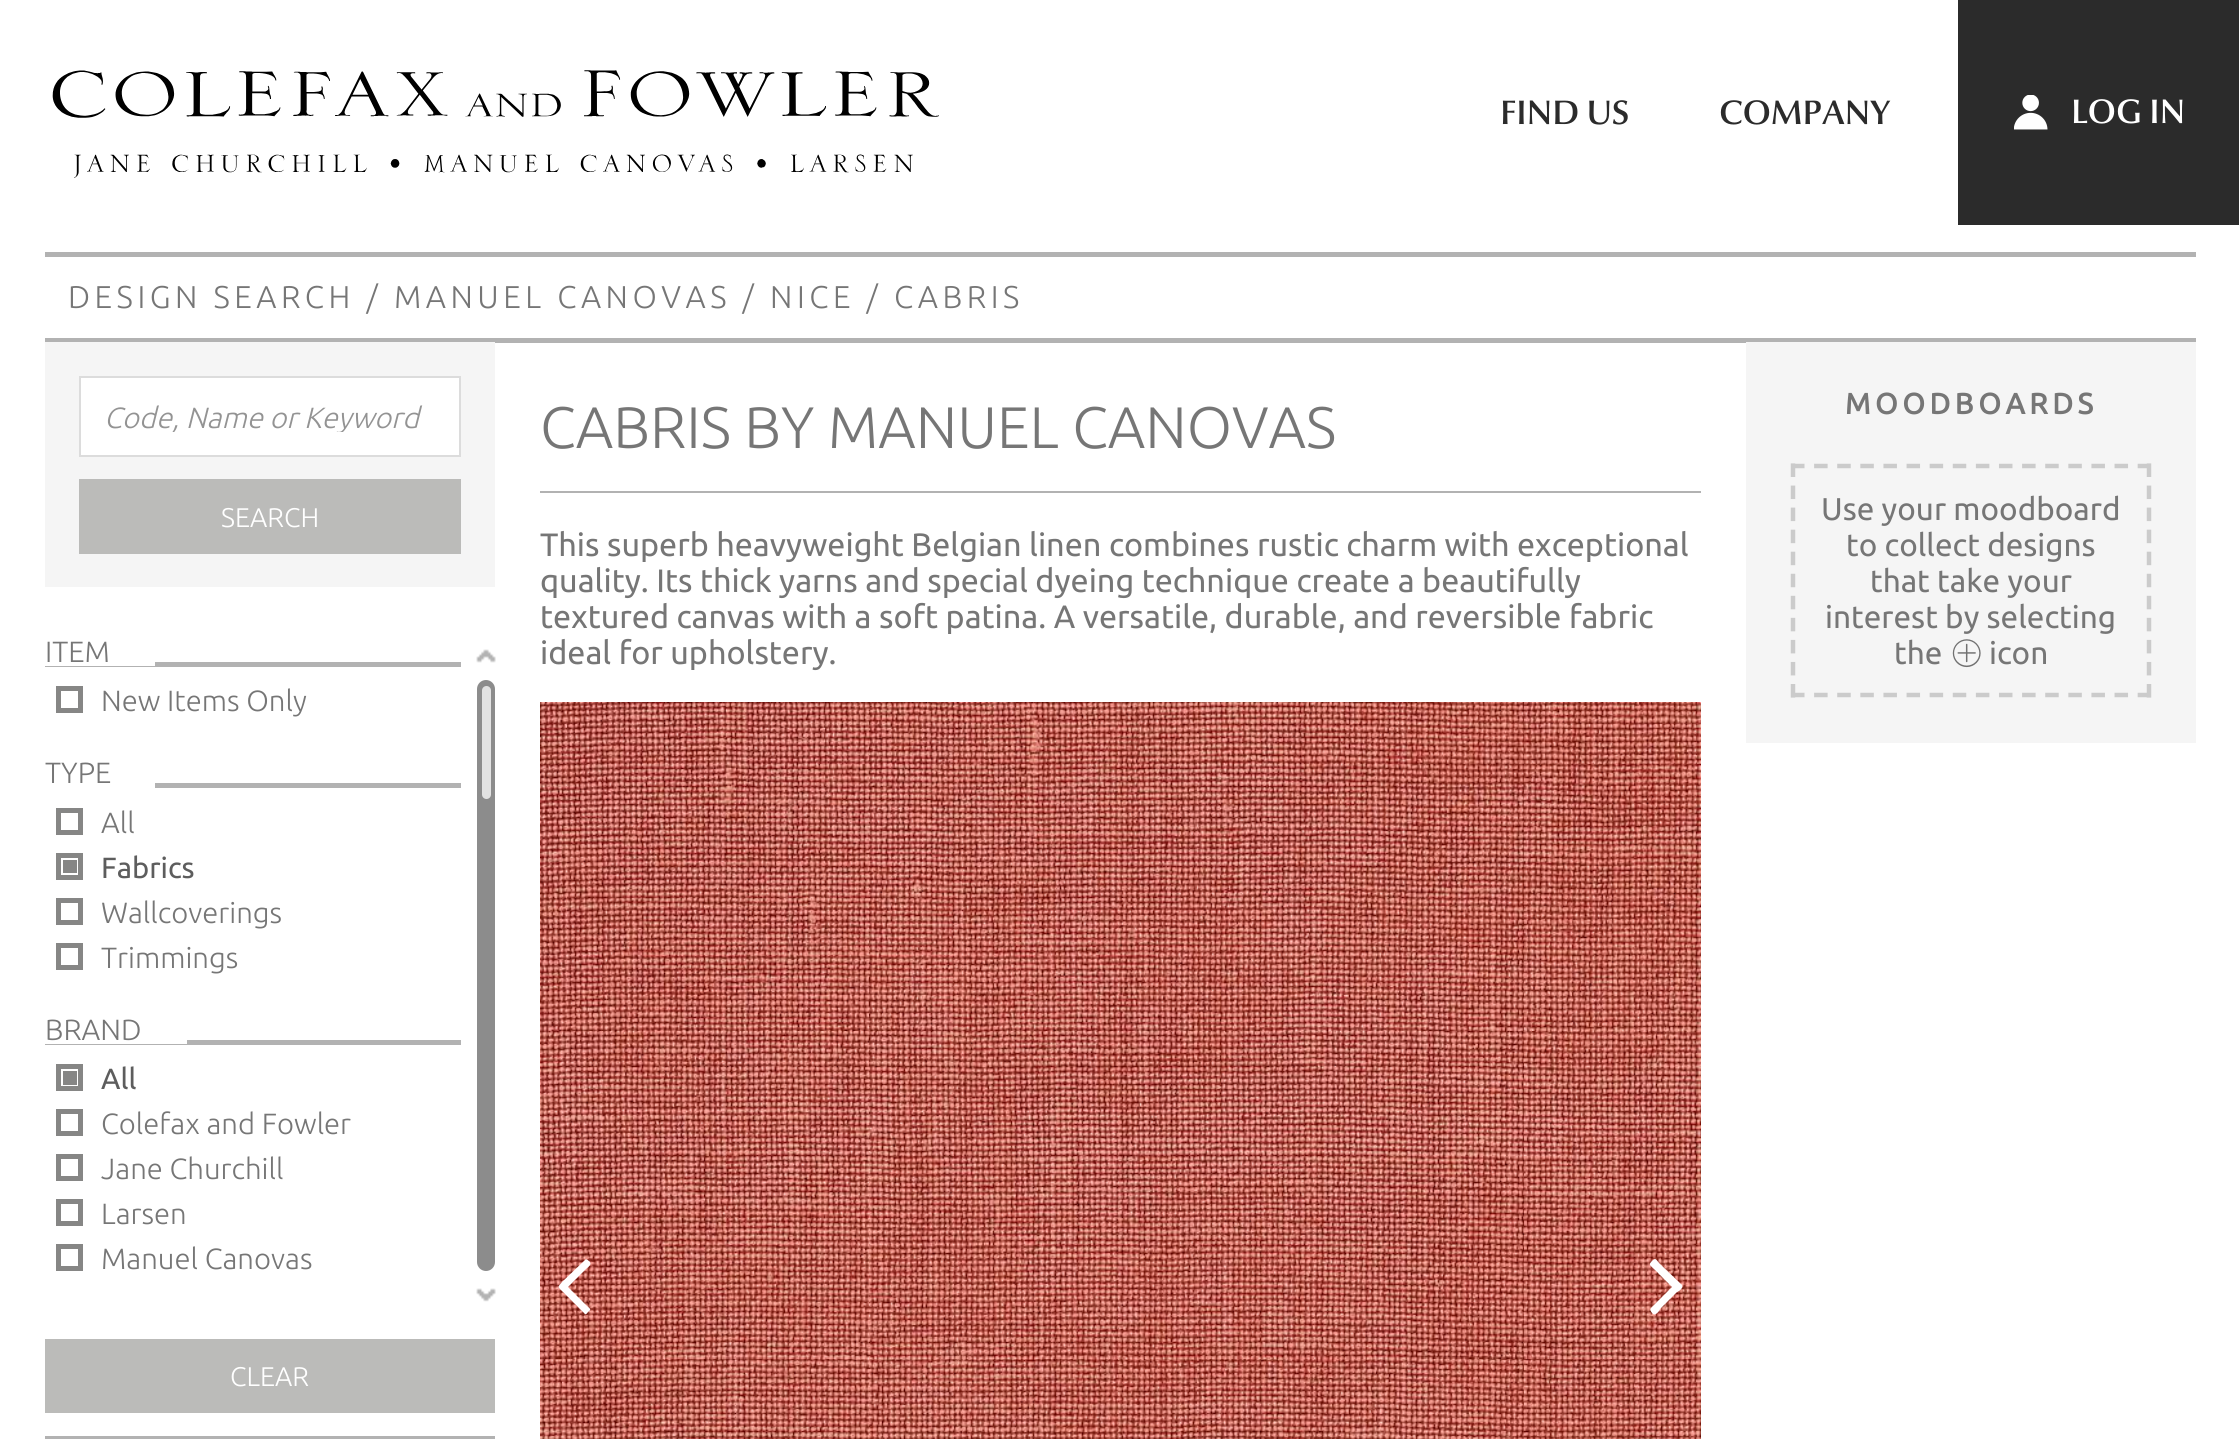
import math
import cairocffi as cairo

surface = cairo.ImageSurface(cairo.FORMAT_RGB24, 2239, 1439)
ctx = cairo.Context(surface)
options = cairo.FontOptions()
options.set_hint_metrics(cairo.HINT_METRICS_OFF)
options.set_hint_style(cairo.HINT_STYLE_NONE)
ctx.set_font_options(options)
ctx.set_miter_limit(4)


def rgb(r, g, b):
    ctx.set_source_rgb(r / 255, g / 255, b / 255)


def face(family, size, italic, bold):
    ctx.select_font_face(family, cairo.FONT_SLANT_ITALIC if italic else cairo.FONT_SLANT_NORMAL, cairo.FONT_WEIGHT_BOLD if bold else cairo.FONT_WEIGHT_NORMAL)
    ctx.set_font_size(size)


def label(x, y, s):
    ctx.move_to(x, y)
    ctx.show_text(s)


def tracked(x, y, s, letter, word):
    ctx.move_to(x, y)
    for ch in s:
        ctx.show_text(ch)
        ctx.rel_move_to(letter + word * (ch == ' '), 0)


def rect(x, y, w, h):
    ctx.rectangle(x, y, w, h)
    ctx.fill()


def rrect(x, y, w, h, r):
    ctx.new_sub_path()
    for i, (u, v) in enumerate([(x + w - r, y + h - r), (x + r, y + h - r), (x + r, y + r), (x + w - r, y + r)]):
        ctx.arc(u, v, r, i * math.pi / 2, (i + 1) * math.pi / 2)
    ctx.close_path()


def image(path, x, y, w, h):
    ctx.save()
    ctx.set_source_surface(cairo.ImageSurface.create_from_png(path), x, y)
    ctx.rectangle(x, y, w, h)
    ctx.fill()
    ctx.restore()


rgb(255, 255, 255)
ctx.paint()
image('image0.png', 52, 70, 887, 108)
face('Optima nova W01', 34.25, 0, 0)
rgb(43, 43, 43)
label(1500, 124, 'FIND US')
label(1719, 124, 'COMPANY')
rect(1958, 0, 281, 225)
image('image1.png', 2014, 95, 34, 35)
rgb(255, 255, 255)
label(2071, 123, 'LOG IN')
rgb(178, 178, 178)
rect(45, 252, 2151, 5)
rect(45, 338, 2151, 5)
face('Ubuntu Light', 31.5, 0, 0)
rgb(118, 118, 118)
tracked(68, 308, 'DESIGN SEARCH / MANUEL CANOVAS / NICE / CABRIS', 4.5, 0)
rgb(178, 178, 178)
rect(45, 1436, 450, 3)
rgb(245, 245, 245)
rect(45, 342, 450, 245)
rgb(255, 255, 255)
ctx.rectangle(80, 377, 380, 79)
ctx.fill_preserve()
rgb(220, 220, 220)
ctx.stroke()
ctx.save()
ctx.rectangle(104, 401, 333, 31)
ctx.clip()
face('Ubuntu Light', 29.25, 1, 0)
rgb(147, 147, 147)
label(104, 428, 'Code, Name or Keyword')
ctx.restore()
rgb(187, 187, 185)
rect(79, 479, 382, 75)
face('Ubuntu Light', 27, 0, 0)
rgb(255, 255, 255)
label(221, 527, 'SEARCH')
rgb(178, 178, 178)
rect(45, 662, 416, 5)
rgb(255, 255, 255)
rect(45, 662, 110, 4)
face('Ubuntu Light', 29.25, 0, 0)
rgb(118, 118, 118)
label(45, 662, 'ITEM')
ctx.rectangle(58.5, 688.5, 22, 22)
rgb(134, 134, 133)
ctx.set_line_width(5)
ctx.stroke()
rgb(118, 118, 118)
label(101, 711, 'New Items Only')
label(45, 783, 'TYPE')
rgb(178, 178, 178)
rect(155, 783, 306, 5)
ctx.rectangle(58.5, 810.5, 22, 22)
rgb(134, 134, 133)
ctx.stroke()
rgb(118, 118, 118)
label(101, 833, 'All')
rgb(134, 134, 133)
rect(63, 860, 14, 13)
ctx.rectangle(58.5, 855.5, 22, 22)
ctx.stroke()
face('Ubuntu', 29.25, 0, 0)
rgb(93, 93, 93)
label(101, 878, 'Fabrics')
ctx.rectangle(58.5, 900.5, 22, 22)
rgb(134, 134, 133)
ctx.stroke()
face('Ubuntu Light', 29.25, 0, 0)
rgb(118, 118, 118)
label(101, 923, 'Wallcoverings')
ctx.rectangle(58.5, 945.5, 22, 22)
rgb(134, 134, 133)
ctx.stroke()
rgb(118, 118, 118)
label(101, 968, 'Trimmings')
rgb(178, 178, 178)
rect(45, 1040, 416, 5)
rgb(255, 255, 255)
rect(45, 1040, 142, 4)
rgb(118, 118, 118)
label(45, 1040, 'BRAND')
rgb(134, 134, 133)
rect(63, 1071, 14, 14)
ctx.rectangle(58.5, 1066.5, 22, 22)
ctx.stroke()
face('Ubuntu', 29.25, 0, 0)
rgb(93, 93, 93)
label(101, 1089, 'All')
ctx.rectangle(58.5, 1111.5, 22, 22)
rgb(134, 134, 133)
ctx.stroke()
face('Ubuntu Light', 29.25, 0, 0)
rgb(118, 118, 118)
label(101, 1134, 'Colefax and Fowler')
ctx.rectangle(58.5, 1156.5, 22, 22)
rgb(134, 134, 133)
ctx.stroke()
rgb(118, 118, 118)
label(101, 1179, 'Jane Churchill')
ctx.rectangle(58.5, 1201.5, 22, 22)
rgb(134, 134, 133)
ctx.stroke()
rgb(118, 118, 118)
label(101, 1224, 'Larsen')
ctx.rectangle(58.5, 1246.5, 22, 22)
rgb(134, 134, 133)
ctx.stroke()
rgb(118, 118, 118)
label(101, 1269, 'Manuel Canovas')
image('image2.png', 476, 649, 20, 14)
rgb(140, 140, 140)
rrect(477, 680, 18, 591, 9)
ctx.fill()
rgb(226, 226, 226)
rrect(482, 686, 9, 113, 4.5)
ctx.fill()
image('image3.png', 476, 1288, 20, 14)
rgb(187, 187, 185)
rect(45, 1339, 450, 74)
face('Ubuntu Light', 27, 0, 0)
rgb(255, 255, 255)
label(230, 1386, 'CLEAR')
rgb(178, 178, 178)
rect(540, 491, 1161, 2)
face('Ubuntu Light', 58.5, 0, 0)
rgb(118, 118, 118)
label(540, 448, 'CABRIS BY MANUEL CANOVAS')
face('Ubuntu', 32.4, 0, 0)
label(540, 556, 'This superb heavyweight Belgian linen combines rustic charm with exceptional')
label(540, 592, 'quality. Its thick yarns and special dyeing technique create a beautifully')
label(540, 628, 'textured canvas with a soft patina. A versatile, durable, and reversible fabric')
label(540, 664, 'ideal for upholstery.')
image('image4.png', 540, 702, 1161, 737)
rgb(255, 255, 255)
ctx.new_path()
ctx.move_to(590, 1262)
ctx.curve_to(592, 1265, 587, 1268, 586, 1269)
ctx.line_to(568, 1287)
ctx.line_to(586, 1305)
ctx.curve_to(590, 1309, 592, 1309, 588, 1312)
ctx.curve_to(587, 1313, 586, 1315, 585, 1314)
ctx.line_to(563, 1292)
ctx.curve_to(557, 1286, 557, 1288, 563, 1281)
ctx.line_to(585, 1260)
ctx.curve_to(586, 1258, 589, 1261, 590, 1262)
ctx.close_path()
ctx.fill()
ctx.new_path()
ctx.move_to(1682, 1285)
ctx.curve_to(1684, 1288, 1678, 1292, 1677, 1292)
ctx.line_to(1660, 1309)
ctx.curve_to(1660, 1310, 1656, 1316, 1653, 1314)
ctx.curve_to(1652, 1313, 1649, 1310, 1651, 1308)
ctx.line_to(1672, 1287)
ctx.line_to(1654, 1269)
ctx.curve_to(1650, 1265, 1648, 1265, 1652, 1261)
ctx.curve_to(1656, 1257, 1656, 1260, 1660, 1264)
ctx.close_path()
ctx.fill()
rgb(245, 245, 245)
rect(1746, 342, 450, 401)
face('Ubuntu', 29.25, 0, 1)
rgb(118, 118, 118)
tracked(1845, 414, 'MOODBOARDS', 4.5, 0)
ctx.new_path()
ctx.move_to(1791, 466)
ctx.line_to(2151, 466)
rgb(203, 203, 203)
ctx.set_line_width(4.5)
ctx.set_dash([13.5, 9.61])
ctx.stroke()
ctx.new_path()
ctx.move_to(2149, 463.5)
ctx.line_to(2149, 697.5)
ctx.set_dash([13.5, 8.55])
ctx.stroke()
ctx.new_path()
ctx.move_to(1791, 695)
ctx.line_to(2151, 695)
ctx.set_dash([13.5, 9.61])
ctx.stroke()
ctx.new_path()
ctx.move_to(1793, 463.5)
ctx.line_to(1793, 697.5)
ctx.set_dash([13.5, 8.55])
ctx.stroke()
face('Ubuntu', 31.5, 0, 0)
rgb(118, 118, 118)
label(1821, 520, 'Use your moodboard')
label(1846, 556, 'to collect designs')
label(1870, 592, 'that take your')
label(1825, 628, 'interest by selecting')
label(1894, 664, 'the')
image('image5.png', 1952, 639, 29, 29)
label(1989, 664, 'icon')
surface.write_to_png('render.png')
